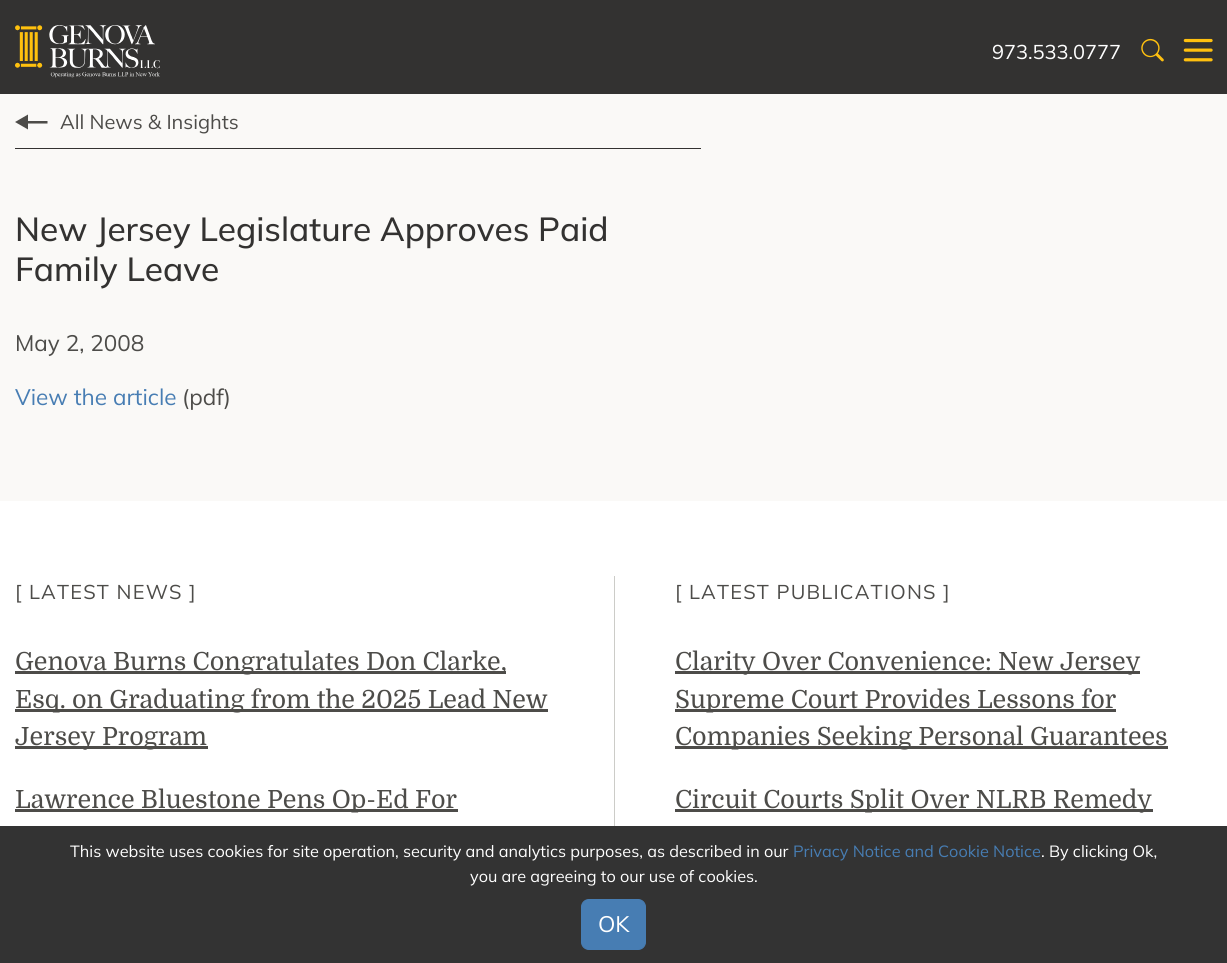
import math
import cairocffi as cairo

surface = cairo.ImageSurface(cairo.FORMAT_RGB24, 1227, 963)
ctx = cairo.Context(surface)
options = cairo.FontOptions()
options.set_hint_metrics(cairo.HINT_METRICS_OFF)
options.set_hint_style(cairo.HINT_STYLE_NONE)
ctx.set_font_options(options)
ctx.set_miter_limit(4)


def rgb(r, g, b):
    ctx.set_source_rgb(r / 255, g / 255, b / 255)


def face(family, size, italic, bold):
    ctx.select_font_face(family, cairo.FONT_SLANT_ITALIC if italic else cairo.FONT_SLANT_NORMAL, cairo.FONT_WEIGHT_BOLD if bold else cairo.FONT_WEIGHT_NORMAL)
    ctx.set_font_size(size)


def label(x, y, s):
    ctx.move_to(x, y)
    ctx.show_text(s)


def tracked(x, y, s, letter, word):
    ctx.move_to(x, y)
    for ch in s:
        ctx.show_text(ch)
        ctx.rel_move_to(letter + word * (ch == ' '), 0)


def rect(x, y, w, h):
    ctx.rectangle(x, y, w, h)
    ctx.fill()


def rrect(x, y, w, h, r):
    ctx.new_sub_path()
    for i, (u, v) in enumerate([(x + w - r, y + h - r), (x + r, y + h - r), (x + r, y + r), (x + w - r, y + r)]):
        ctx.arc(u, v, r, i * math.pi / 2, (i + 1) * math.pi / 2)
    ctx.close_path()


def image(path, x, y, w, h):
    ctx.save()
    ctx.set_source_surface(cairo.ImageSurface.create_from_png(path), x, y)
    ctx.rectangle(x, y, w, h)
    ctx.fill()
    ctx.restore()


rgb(250, 249, 247)
ctx.paint()
rgb(51, 50, 49)
rect(0, 0, 1227, 94)
image('image0.png', 15, 25, 145, 53)
face('Mulish', 20, 0, 0)
rgb(255, 255, 255)
label(992, 59, '973.533.0777')
image('image1.png', 1141, 38, 23, 24)
image('image2.png', 1183, 38, 30, 24)
rgb(51, 50, 49)
rect(15, 148, 686, 1)
rgb(77, 76, 73)
ctx.new_path()
ctx.move_to(47.5, 121)
ctx.line_to(28, 121)
ctx.line_to(28, 114.5)
ctx.line_to(15, 122)
ctx.line_to(28, 129.5)
ctx.line_to(28, 123.5)
ctx.line_to(47.5, 123.5)
ctx.close_path()
ctx.fill()
label(60, 129, 'All News & Insights')
face('Mulish Medium', 33.4, 0, 0)
rgb(51, 50, 49)
label(15, 241, 'New Jersey Legislature Approves Paid')
label(15, 281, 'Family Leave')
face('Mulish', 22.5, 0, 0)
rgb(77, 76, 73)
label(15, 351, 'May 2, 2008')
rgb(71, 125, 179)
label(15, 405, 'View the article')
rgb(77, 76, 73)
label(182, 405, '(pdf)')
rgb(255, 255, 255)
rect(0, 501, 1227, 325)
face('Mulish', 20, 0, 0)
rgb(77, 76, 73)
tracked(15, 599, '[ LATEST NEWS ]', 1.2, 0)
rect(15, 671, 491, 3)
face('Domine', 25, 0, 0)
label(15, 670, 'Genova Burns Congratulates Don Clarke,')
rect(15, 709, 533, 3)
label(15, 708, 'Esq. on Graduating from the 2025 Lead New')
rect(15, 746, 193, 3)
label(15, 745, 'Jersey Program')
rect(15, 809, 443, 3)
label(15, 808, 'Lawrence Bluestone Pens Op-Ed For')
rgb(204, 204, 200)
rect(614, 576, 1, 250)
face('Mulish', 20, 0, 0)
rgb(77, 76, 73)
tracked(675, 599, '[ LATEST PUBLICATIONS ]', 1.2, 0)
rect(675, 671, 465, 3)
face('Domine', 25, 0, 0)
label(675, 670, 'Clarity Over Convenience: New Jersey')
rect(675, 709, 441, 3)
label(675, 708, 'Supreme Court Provides Lessons for')
rect(675, 746, 493, 3)
label(675, 745, 'Companies Seeking Personal Guarantees')
rect(675, 809, 478, 3)
label(675, 808, 'Circuit Courts Split Over NLRB Remedy')
rgb(51, 51, 51)
rect(0, 826, 1227, 137)
face('Mulish', 16.25, 0, 0)
rgb(255, 255, 255)
label(70, 857, 'This website uses cookies for site operation, security and analytics purposes, as described in our')
rgb(71, 125, 179)
label(793, 857, 'Privacy Notice and Cookie Notice')
rgb(255, 255, 255)
label(1041, 857, '. By clicking Ok,')
label(470, 882, 'you are agreeing to our use of cookies.')
rgb(71, 125, 179)
rrect(581.5, 899.5, 64, 50, 7.5)
ctx.fill_preserve()
ctx.set_line_width(1)
ctx.stroke()
face('Mulish', 22.5, 0, 0)
rgb(255, 255, 255)
label(598, 932, 'OK')
surface.write_to_png('render.png')
